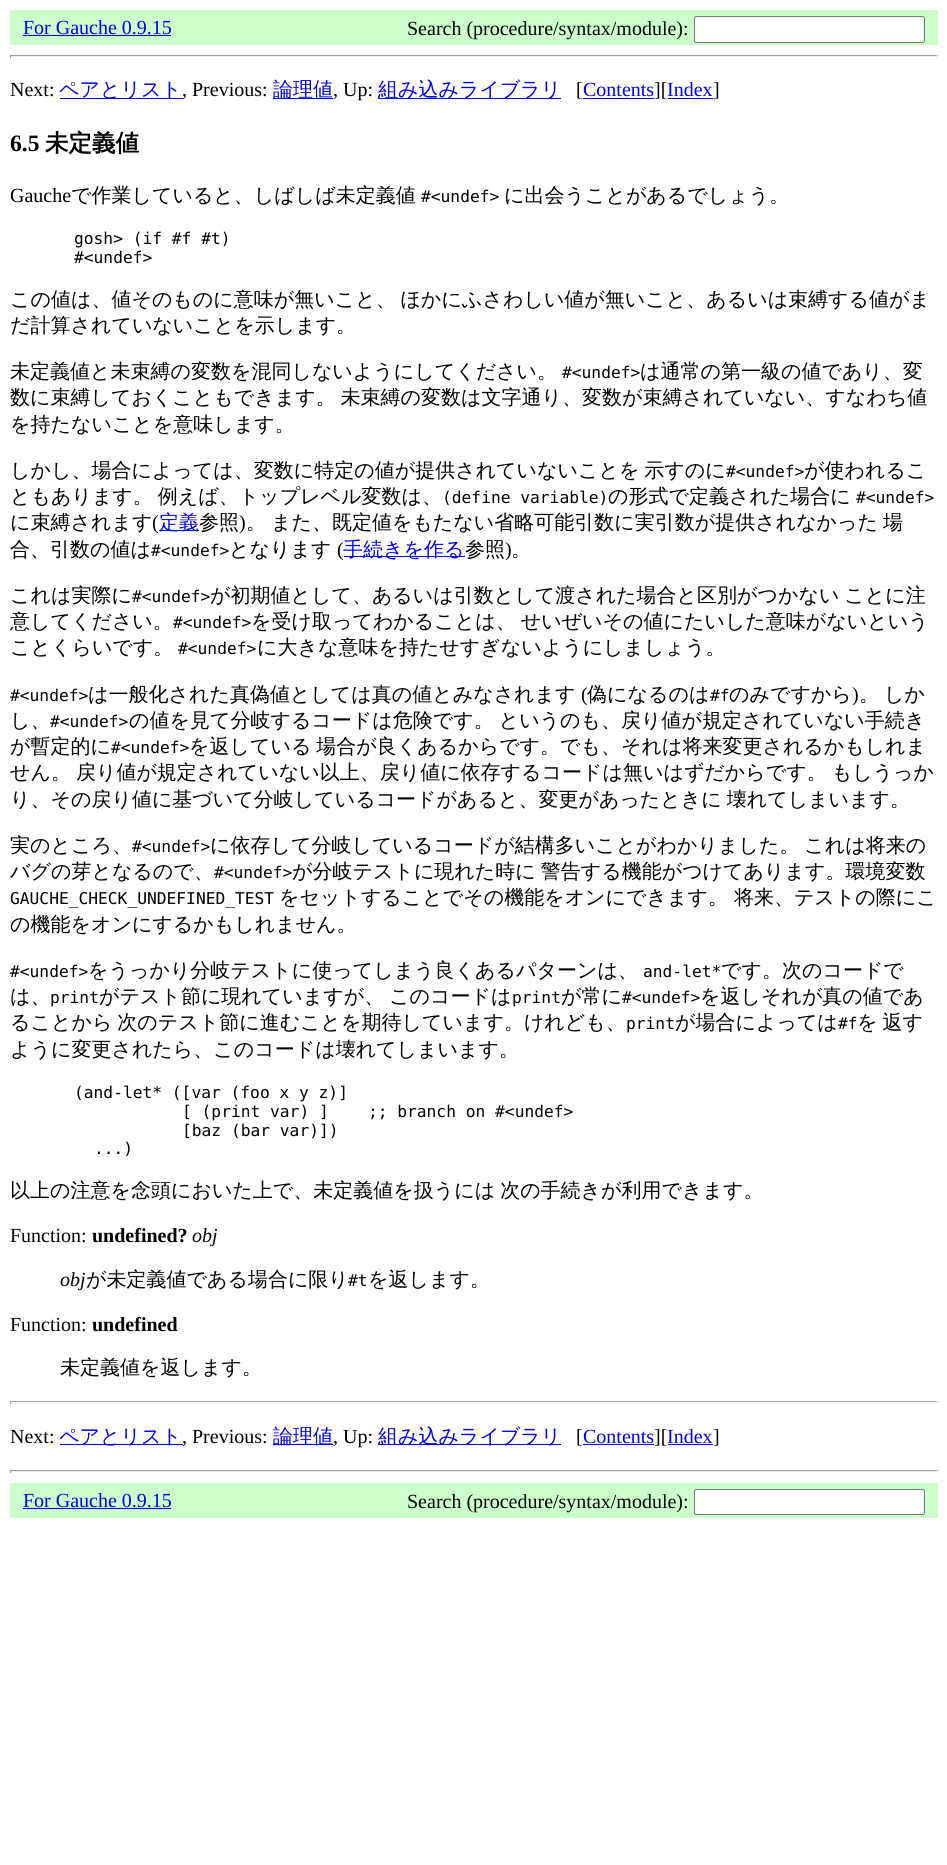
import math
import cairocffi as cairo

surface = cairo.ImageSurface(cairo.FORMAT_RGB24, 947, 1865)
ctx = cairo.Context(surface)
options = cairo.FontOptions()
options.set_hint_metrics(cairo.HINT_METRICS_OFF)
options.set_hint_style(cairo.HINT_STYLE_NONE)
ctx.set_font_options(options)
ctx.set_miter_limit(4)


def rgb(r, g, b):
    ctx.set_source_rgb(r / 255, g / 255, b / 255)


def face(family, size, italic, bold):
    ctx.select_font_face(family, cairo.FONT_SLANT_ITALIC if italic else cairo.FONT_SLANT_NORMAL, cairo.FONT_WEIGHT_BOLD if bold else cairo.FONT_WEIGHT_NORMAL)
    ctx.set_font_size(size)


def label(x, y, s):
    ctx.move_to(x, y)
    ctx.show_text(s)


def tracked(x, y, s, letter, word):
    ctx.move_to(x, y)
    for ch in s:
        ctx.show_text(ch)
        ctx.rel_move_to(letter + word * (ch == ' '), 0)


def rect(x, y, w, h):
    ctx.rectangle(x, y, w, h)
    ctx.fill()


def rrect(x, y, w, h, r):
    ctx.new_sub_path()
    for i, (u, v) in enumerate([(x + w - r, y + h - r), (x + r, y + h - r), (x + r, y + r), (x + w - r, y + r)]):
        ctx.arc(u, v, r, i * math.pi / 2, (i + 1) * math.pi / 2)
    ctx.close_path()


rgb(255, 255, 255)
ctx.paint()
rgb(204, 255, 204)
rect(10, 10, 928, 35)
face('Liberation Serif', 20, 0, 0)
rgb(0, 0, 238)
label(23, 34, 'For Gauche 0.9.15')
rect(23, 35, 148, 1)
rgb(0, 0, 0)
label(407, 35, 'Search (procedure/syntax/module):')
rgb(255, 255, 255)
rrect(694.5, 16.5, 230, 26, 2)
ctx.fill_preserve()
rgb(118, 118, 118)
ctx.set_line_width(1)
ctx.stroke()
rgb(159, 159, 159)
rect(10, 55, 928, 1)
rgb(238, 238, 238)
rect(936, 55, 1, 3)
rect(10, 56, 928, 1)
rgb(159, 159, 159)
rect(10, 55, 1, 3)
rgb(0, 0, 0)
label(10, 96, 'Next:')
rgb(0, 0, 238)
rect(60, 98, 123, 1)
face('WenQuanYi Zen Hei Medium', 20, 0, 0)
label(59, 96, 'ペアとリスト')
face('Liberation Serif', 20, 0, 0)
rgb(0, 0, 0)
label(182, 96, ', Previous:')
rgb(0, 0, 238)
rect(273, 98, 60, 1)
face('WenQuanYi Zen Hei Medium', 20, 0, 0)
label(273, 96, '論理値')
face('Liberation Serif', 20, 0, 0)
rgb(0, 0, 0)
label(333, 96, ', Up:')
rgb(0, 0, 238)
rect(378, 98, 183, 1)
face('WenQuanYi Zen Hei Medium', 20, 0, 0)
label(378, 96, '組み込みライブラリ')
face('Liberation Serif', 20, 0, 0)
rgb(0, 0, 0)
label(576, 96, '[')
rgb(0, 0, 238)
label(583, 96, 'Contents')
rect(583, 98, 71, 1)
rgb(0, 0, 0)
label(654, 96, '][')
rgb(0, 0, 238)
label(667, 96, 'Index')
rect(668, 98, 45, 1)
rgb(0, 0, 0)
label(713, 96, ']')
face('Liberation Serif', 23.5, 0, 1)
label(10, 151, '6.5')
face('WenQuanYi Zen Hei', 23.5, 0, 1)
label(45, 151, '未定義値')
face('Liberation Serif', 20, 0, 0)
label(10, 202, 'Gauche')
face('WenQuanYi Zen Hei Medium', 20, 0, 0)
label(71, 202, 'で作業していると、しばしば未定義値')
face('DejaVu Sans Mono', 16.25, 0, 0)
label(421, 202, '#<undef>')
face('WenQuanYi Zen Hei Medium', 20, 0, 0)
label(504, 202, 'に出会うことがあるでしょう。')
face('DejaVu Sans Mono', 16.25, 0, 0)
label(74, 244, 'gosh> (if #f #t)')
label(74, 263, '#<undef>')
face('WenQuanYi Zen Hei Medium', 20, 0, 0)
tracked(10, 306, 'この値は、値そのものに意味が無いこと、 ほかにふさわしい値が無いこと、あるいは束縛する値がま', 0, -1)
label(10, 332, 'だ計算されていないことを示します。')
label(10, 378, '未定義値と未束縛の変数を混同しないようにしてください。')
face('DejaVu Sans Mono', 16.25, 0, 0)
label(562, 378, '#<undef>')
face('WenQuanYi Zen Hei Medium', 20, 0, 0)
label(640, 378, 'は通常の第一級の値であり、変')
tracked(10, 404, '数に束縛しておくこともできます。 未束縛の変数は文字通り、変数が束縛されていない、すなわち値', 0, -1)
label(10, 431, 'を持たないことを意味します。')
tracked(10, 477, 'しかし、場合によっては、変数に特定の値が提供されていないことを 示すのに', 0, -1)
face('DejaVu Sans Mono', 16.25, 0, 0)
label(726, 477, '#<undef>')
face('WenQuanYi Zen Hei Medium', 20, 0, 0)
label(804, 477, 'が使われるこ')
tracked(10, 503, 'ともあります。 例えば、トップレベル変数は、', 0, -1)
face('DejaVu Sans Mono', 16.25, 0, 0)
label(442, 503, '(define variable)')
face('WenQuanYi Zen Hei Medium', 20, 0, 0)
label(608, 503, 'の形式で定義された場合に')
face('DejaVu Sans Mono', 16.25, 0, 0)
label(856, 503, '#<undef>')
face('WenQuanYi Zen Hei Medium', 20, 0, 0)
label(10, 529, 'に束縛されます')
face('Liberation Serif', 20, 0, 0)
label(152, 529, '(')
rgb(0, 0, 238)
rect(159, 530, 40, 1)
face('WenQuanYi Zen Hei Medium', 20, 0, 0)
label(159, 529, '定義')
rgb(0, 0, 0)
label(199, 529, '参照')
face('Liberation Serif', 20, 0, 0)
label(239, 529, ')')
face('WenQuanYi Zen Hei Medium', 20, 0, 0)
tracked(246, 529, '。 また、既定値をもたない省略可能引数に実引数が提供されなかった 場', 0, -1)
label(10, 556, '合、引数の値は')
face('DejaVu Sans Mono', 16.25, 0, 0)
label(151, 556, '#<undef>')
face('WenQuanYi Zen Hei Medium', 20, 0, 0)
label(229, 556, 'となります')
face('Liberation Serif', 20, 0, 0)
label(337, 556, '(')
rgb(0, 0, 238)
rect(344, 556, 121, 1)
face('WenQuanYi Zen Hei Medium', 20, 0, 0)
label(343, 556, '手続きを作る')
rgb(0, 0, 0)
label(465, 556, '参照')
face('Liberation Serif', 20, 0, 0)
label(505, 556, ')')
face('WenQuanYi Zen Hei Medium', 20, 0, 0)
label(511, 556, '。')
label(10, 602, 'これは実際に')
face('DejaVu Sans Mono', 16.25, 0, 0)
label(132, 602, '#<undef>')
face('WenQuanYi Zen Hei Medium', 20, 0, 0)
tracked(210, 602, 'が初期値として、あるいは引数として渡された場合と区別がつかない ことに注', 0, -1)
label(10, 628, '意してください。')
face('DejaVu Sans Mono', 16.25, 0, 0)
label(173, 628, '#<undef>')
face('WenQuanYi Zen Hei Medium', 20, 0, 0)
tracked(251, 628, 'を受け取ってわかることは、 せいぜいその値にたいした意味がないという', 0, -1)
label(10, 654, 'ことくらいです。')
face('DejaVu Sans Mono', 16.25, 0, 0)
label(178, 654, '#<undef>')
face('WenQuanYi Zen Hei Medium', 20, 0, 0)
label(257, 654, 'に大きな意味を持たせすぎないようにしましょう。')
face('DejaVu Sans Mono', 16.25, 0, 0)
label(10, 701, '#<undef>')
face('WenQuanYi Zen Hei Medium', 20, 0, 0)
label(88, 701, 'は一般化された真偽値としては真の値とみなされます')
face('Liberation Serif', 20, 0, 0)
label(581, 701, '(')
face('WenQuanYi Zen Hei Medium', 20, 0, 0)
label(587, 701, '偽になるのは')
face('DejaVu Sans Mono', 16.25, 0, 0)
label(710, 701, '#f')
face('WenQuanYi Zen Hei Medium', 20, 0, 0)
label(729, 701, 'のみですから')
face('Liberation Serif', 20, 0, 0)
label(852, 701, ')')
face('WenQuanYi Zen Hei Medium', 20, 0, 0)
tracked(859, 701, '。 しか', 0, -1)
label(10, 727, 'し、')
face('DejaVu Sans Mono', 16.25, 0, 0)
label(50, 727, '#<undef>')
face('WenQuanYi Zen Hei Medium', 20, 0, 0)
tracked(129, 727, 'の値を見て分岐するコードは危険です。 というのも、戻り値が規定されていない手続き', 0, -1)
label(10, 753, 'が暫定的に')
face('DejaVu Sans Mono', 16.25, 0, 0)
label(111, 753, '#<undef>')
face('WenQuanYi Zen Hei Medium', 20, 0, 0)
tracked(189, 753, 'を返している 場合が良くあるからです。でも、それは将来変更されるかもしれま', 0, -1)
tracked(10, 779, 'せん。 戻り値が規定されていない以上、戻り値に依存するコードは無いはずだからです。 もしうっか', 0, -1)
tracked(10, 806, 'り、その戻り値に基づいて分岐しているコードがあると、変更があったときに 壊れてしまいます。', 0, -1)
label(10, 852, '実のところ、')
face('DejaVu Sans Mono', 16.25, 0, 0)
label(132, 852, '#<undef>')
face('WenQuanYi Zen Hei Medium', 20, 0, 0)
tracked(210, 852, 'に依存して分岐しているコードが結構多いことがわかりました。 これは将来の', 0, -1)
label(10, 878, 'バグの芽となるので、')
face('DejaVu Sans Mono', 16.25, 0, 0)
label(214, 878, '#<undef>')
face('WenQuanYi Zen Hei Medium', 20, 0, 0)
tracked(292, 878, 'が分岐テストに現れた時に 警告する機能がつけてあります。環境変数', 0, -1)
face('DejaVu Sans Mono', 16.25, 0, 0)
label(10, 904, 'GAUCHE_CHECK_UNDEFINED_TEST')
face('WenQuanYi Zen Hei Medium', 20, 0, 0)
label(279, 904, 'をセットすることでその機能をオンにできます。 将来、テストの際にこ')
label(10, 931, 'の機能をオンにするかもしれません。')
face('DejaVu Sans Mono', 16.25, 0, 0)
label(10, 977, '#<undef>')
face('WenQuanYi Zen Hei Medium', 20, 0, 0)
label(88, 977, 'をうっかり分岐テストに使ってしまう良くあるパターンは、')
face('DejaVu Sans Mono', 16.25, 0, 0)
label(643, 977, 'and-let*')
face('WenQuanYi Zen Hei Medium', 20, 0, 0)
label(721, 977, 'です。次のコードで')
label(10, 1003, 'は、')
face('DejaVu Sans Mono', 16.25, 0, 0)
label(50, 1003, 'print')
face('WenQuanYi Zen Hei Medium', 20, 0, 0)
tracked(99, 1003, 'がテスト節に現れていますが、 このコードは', 0, -1)
face('DejaVu Sans Mono', 16.25, 0, 0)
label(512, 1003, 'print')
face('WenQuanYi Zen Hei Medium', 20, 0, 0)
label(561, 1003, 'が常に')
face('DejaVu Sans Mono', 16.25, 0, 0)
label(622, 1003, '#<undef>')
face('WenQuanYi Zen Hei Medium', 20, 0, 0)
label(700, 1003, 'を返しそれが真の値であ')
tracked(10, 1029, 'ることから 次のテスト節に進むことを期待しています。けれども、', 0, -1)
face('DejaVu Sans Mono', 16.25, 0, 0)
label(626, 1029, 'print')
face('WenQuanYi Zen Hei Medium', 20, 0, 0)
label(675, 1029, 'が場合によっては')
face('DejaVu Sans Mono', 16.25, 0, 0)
label(838, 1029, '#f')
face('WenQuanYi Zen Hei Medium', 20, 0, 0)
tracked(857, 1029, 'を 返す', 0, -1)
label(10, 1056, 'ように変更されたら、このコードは壊れてしまいます。')
face('DejaVu Sans Mono', 16.25, 0, 0)
label(74, 1098, '(and-let* ([var (foo x y z)]')
label(182, 1117, '[ (print var) ]    ;; branch on #<undef>')
label(182, 1136, '[baz (bar var)])')
label(94, 1154, '...)')
face('WenQuanYi Zen Hei Medium', 20, 0, 0)
tracked(10, 1197, '以上の注意を念頭においた上で、未定義値を扱うには 次の手続きが利用できます。', 0, -1)
face('Liberation Serif', 20, 0, 0)
label(10, 1242, 'Function:')
face('Liberation Serif', 20, 0, 1)
label(92, 1242, 'undefined?')
face('Liberation Serif', 20, 1, 0)
label(192, 1242, 'obj')
label(60, 1286, 'obj')
face('WenQuanYi Zen Hei Medium', 20, 0, 0)
label(86, 1286, 'が未定義値である場合に限り')
face('DejaVu Sans Mono', 16.25, 0, 0)
label(348, 1286, '#t')
face('WenQuanYi Zen Hei Medium', 20, 0, 0)
label(368, 1286, 'を返します。')
face('Liberation Serif', 20, 0, 0)
label(10, 1331, 'Function:')
face('Liberation Serif', 20, 0, 1)
label(92, 1331, 'undefined')
face('WenQuanYi Zen Hei Medium', 20, 0, 0)
label(60, 1374, '未定義値を返します。')
rgb(159, 159, 159)
rect(10, 1401, 928, 1)
rgb(238, 238, 238)
rect(936, 1401, 1, 3)
rect(10, 1403, 928, 1)
rgb(159, 159, 159)
rect(10, 1401, 1, 3)
face('Liberation Serif', 20, 0, 0)
rgb(0, 0, 0)
label(10, 1443, 'Next:')
rgb(0, 0, 238)
rect(60, 1444, 123, 1)
face('WenQuanYi Zen Hei Medium', 20, 0, 0)
label(59, 1443, 'ペアとリスト')
face('Liberation Serif', 20, 0, 0)
rgb(0, 0, 0)
label(182, 1443, ', Previous:')
rgb(0, 0, 238)
rect(273, 1444, 60, 1)
face('WenQuanYi Zen Hei Medium', 20, 0, 0)
label(273, 1443, '論理値')
face('Liberation Serif', 20, 0, 0)
rgb(0, 0, 0)
label(333, 1443, ', Up:')
rgb(0, 0, 238)
rect(378, 1444, 183, 1)
face('WenQuanYi Zen Hei Medium', 20, 0, 0)
label(378, 1443, '組み込みライブラリ')
face('Liberation Serif', 20, 0, 0)
rgb(0, 0, 0)
label(576, 1443, '[')
rgb(0, 0, 238)
label(583, 1443, 'Contents')
rect(583, 1444, 71, 1)
rgb(0, 0, 0)
label(654, 1443, '][')
rgb(0, 0, 238)
label(667, 1443, 'Index')
rect(668, 1444, 45, 1)
rgb(0, 0, 0)
label(713, 1443, ']')
rgb(159, 159, 159)
rect(10, 1470, 928, 1)
rgb(238, 238, 238)
rect(936, 1470, 1, 3)
rect(10, 1471, 928, 1)
rgb(159, 159, 159)
rect(10, 1470, 1, 3)
rgb(204, 255, 204)
rect(10, 1483, 928, 35)
rgb(0, 0, 238)
label(23, 1507, 'For Gauche 0.9.15')
rect(23, 1508, 148, 1)
rgb(0, 0, 0)
label(407, 1508, 'Search (procedure/syntax/module):')
rgb(255, 255, 255)
rrect(694.5, 1489.5, 230, 25, 2)
ctx.fill_preserve()
rgb(118, 118, 118)
ctx.stroke()
surface.write_to_png('render.png')
